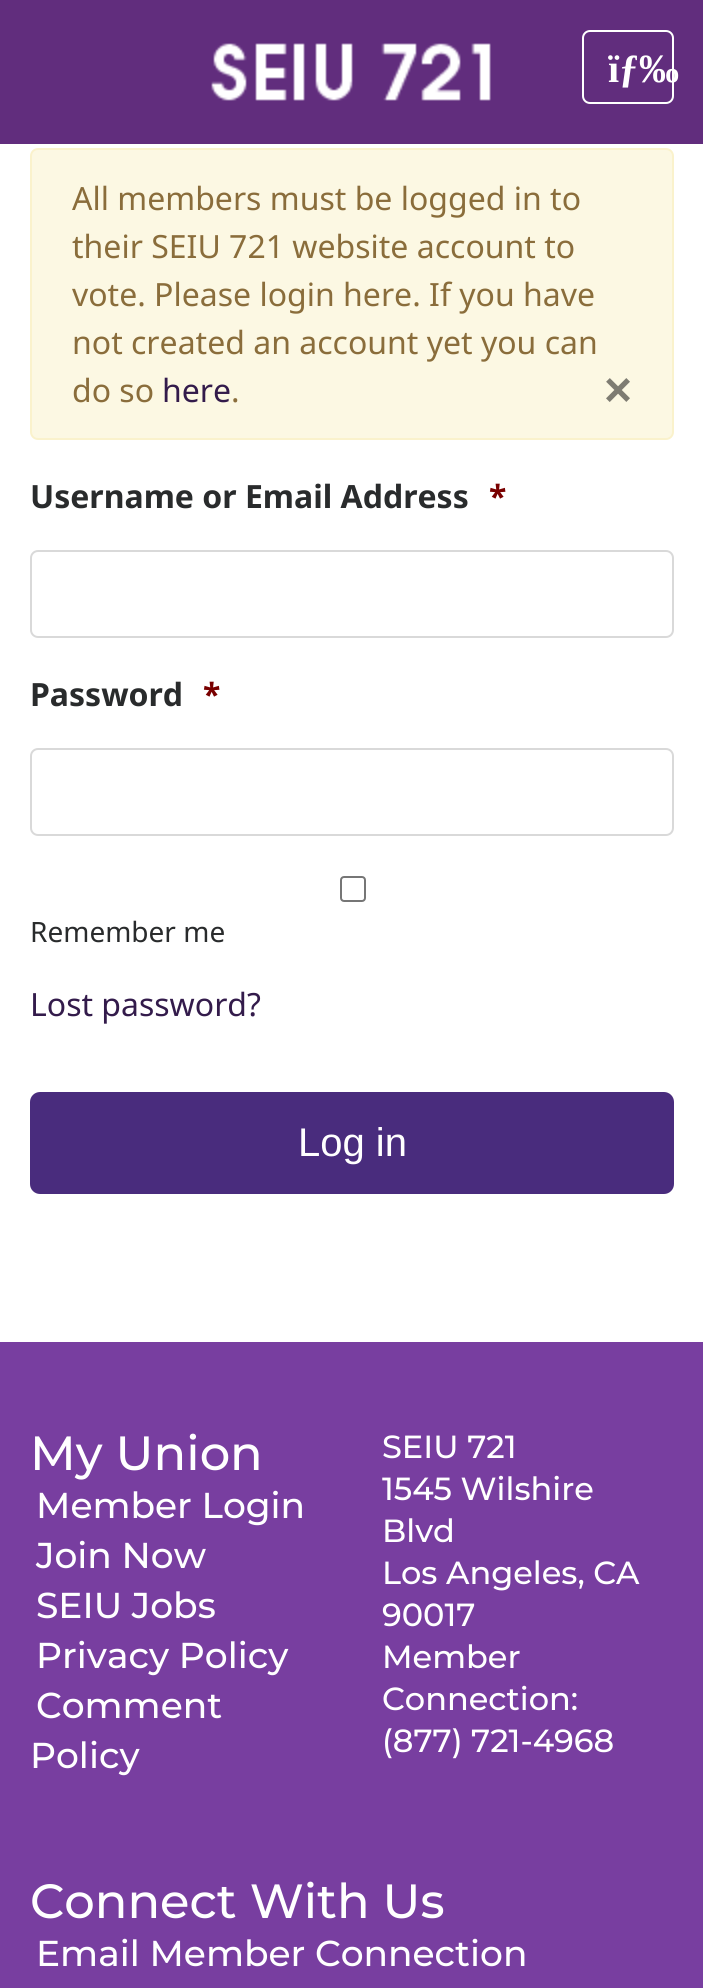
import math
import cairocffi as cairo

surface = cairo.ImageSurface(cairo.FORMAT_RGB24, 703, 1988)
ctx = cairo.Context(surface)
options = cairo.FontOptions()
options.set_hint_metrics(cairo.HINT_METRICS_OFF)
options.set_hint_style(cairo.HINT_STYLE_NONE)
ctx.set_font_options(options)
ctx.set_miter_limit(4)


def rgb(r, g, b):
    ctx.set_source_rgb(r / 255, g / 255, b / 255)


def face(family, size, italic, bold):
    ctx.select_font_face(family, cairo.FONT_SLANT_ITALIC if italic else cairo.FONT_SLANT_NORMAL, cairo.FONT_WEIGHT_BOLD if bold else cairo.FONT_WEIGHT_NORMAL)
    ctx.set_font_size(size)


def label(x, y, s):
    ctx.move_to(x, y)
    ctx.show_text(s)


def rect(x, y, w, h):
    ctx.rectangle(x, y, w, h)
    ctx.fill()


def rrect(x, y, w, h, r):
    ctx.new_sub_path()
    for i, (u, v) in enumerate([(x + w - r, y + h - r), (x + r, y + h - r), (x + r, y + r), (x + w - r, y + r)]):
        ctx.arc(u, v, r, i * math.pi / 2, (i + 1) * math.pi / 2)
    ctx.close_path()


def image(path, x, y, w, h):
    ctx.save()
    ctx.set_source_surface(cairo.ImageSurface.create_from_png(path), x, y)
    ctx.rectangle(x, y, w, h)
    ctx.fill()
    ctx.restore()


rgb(255, 255, 255)
ctx.paint()
rgb(97, 45, 125)
rect(0, 0, 703, 144)
image('image0.png', 211, 43, 280, 58)
rrect(583, 31, 90, 72, 7)
rgb(255, 255, 255)
ctx.stroke()
face('Liberation Serif', 40, 0, 1)
label(608, 82, 'ïƒ‰')
rgb(252, 248, 227)
rrect(31, 149, 642, 290, 7)
ctx.fill_preserve()
rgb(250, 242, 204)
ctx.stroke()
face('Noto Sans', 32, 0, 0)
rgb(138, 109, 59)
label(72, 210, 'All members must be logged in to')
label(72, 258, 'their SEIU 721 website account to')
label(72, 306, 'vote. Please login here. If you have')
label(72, 354, 'not created an account yet you can')
label(72, 402, 'do so')
rgb(51, 27, 75)
label(162, 402, 'here')
rgb(138, 109, 59)
label(231, 402, '.')
face('Liberation Sans', 48, 0, 1)
rgb(126, 124, 114)
label(604, 406, '×')
face('Noto Sans', 32, 0, 1)
rgb(41, 43, 44)
label(30, 508, 'Username or Email Address')
rgb(121, 0, 0)
label(489, 508, '*')
rrect(31, 551, 642, 86, 7)
rgb(217, 217, 217)
ctx.stroke()
rgb(41, 43, 44)
label(30, 706, 'Password')
rgb(121, 0, 0)
label(203, 706, '*')
rrect(31, 749, 642, 86, 7)
rgb(217, 217, 217)
ctx.stroke()
rrect(341, 877, 24, 24, 3)
rgb(118, 118, 118)
ctx.stroke()
face('Noto Sans', 28, 0, 0)
rgb(41, 43, 44)
label(30, 942, 'Remember me')
face('Noto Sans', 32, 0, 0)
rgb(51, 27, 75)
label(30, 1016, 'Lost password?')
rgb(73, 44, 125)
rrect(31, 1093, 642, 100, 9)
ctx.fill_preserve()
ctx.stroke()
face('Liberation Sans', 40, 0, 0)
rgb(255, 255, 255)
label(298, 1156, 'Log in')
rgb(120, 62, 160)
rect(0, 1342, 703, 646)
face('Montserrat Medium', 48, 0, 0)
rgb(255, 255, 255)
label(30, 1470, 'My Union')
face('Montserrat Medium', 36, 0, 0)
label(36, 1518, 'Member Login')
label(36, 1568, 'Join Now')
label(36, 1618, 'SEIU Jobs')
label(36, 1668, 'Privacy Policy')
label(36, 1718, 'Comment')
label(30, 1768, 'Policy')
face('Montserrat Medium', 32, 0, 0)
label(382, 1458, 'SEIU 721')
label(382, 1500, '1545 Wilshire')
label(382, 1542, 'Blvd')
label(382, 1584, 'Los Angeles, CA')
label(382, 1626, '90017')
label(382, 1668, 'Member')
label(382, 1710, 'Connection:')
label(382, 1752, '(877) 721-4968')
face('Montserrat Medium', 48, 0, 0)
label(30, 1918, 'Connect With Us')
face('Montserrat Medium', 36, 0, 0)
label(36, 1966, 'Email Member Connection')
surface.write_to_png('render.png')
